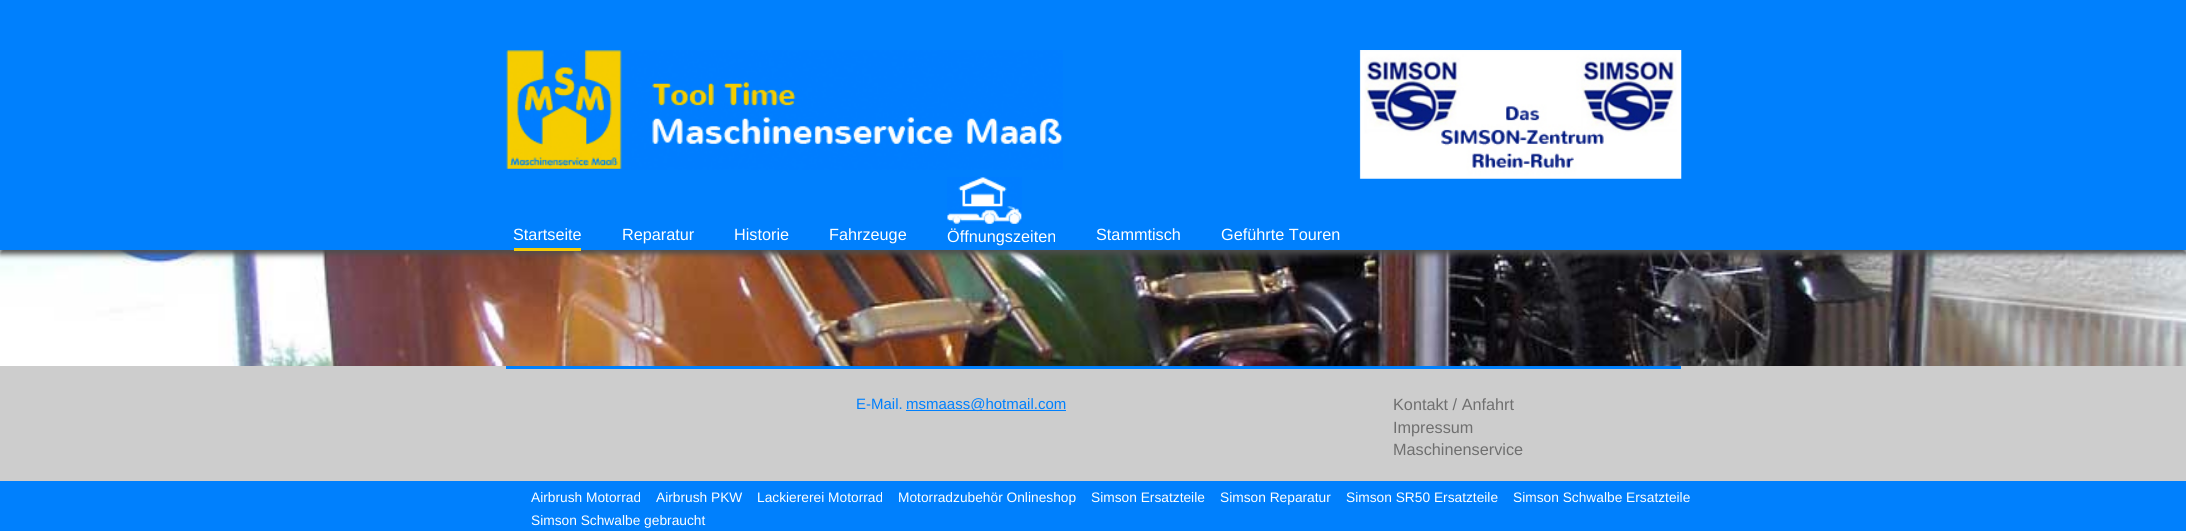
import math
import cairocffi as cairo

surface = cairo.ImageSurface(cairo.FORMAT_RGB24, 2186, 531)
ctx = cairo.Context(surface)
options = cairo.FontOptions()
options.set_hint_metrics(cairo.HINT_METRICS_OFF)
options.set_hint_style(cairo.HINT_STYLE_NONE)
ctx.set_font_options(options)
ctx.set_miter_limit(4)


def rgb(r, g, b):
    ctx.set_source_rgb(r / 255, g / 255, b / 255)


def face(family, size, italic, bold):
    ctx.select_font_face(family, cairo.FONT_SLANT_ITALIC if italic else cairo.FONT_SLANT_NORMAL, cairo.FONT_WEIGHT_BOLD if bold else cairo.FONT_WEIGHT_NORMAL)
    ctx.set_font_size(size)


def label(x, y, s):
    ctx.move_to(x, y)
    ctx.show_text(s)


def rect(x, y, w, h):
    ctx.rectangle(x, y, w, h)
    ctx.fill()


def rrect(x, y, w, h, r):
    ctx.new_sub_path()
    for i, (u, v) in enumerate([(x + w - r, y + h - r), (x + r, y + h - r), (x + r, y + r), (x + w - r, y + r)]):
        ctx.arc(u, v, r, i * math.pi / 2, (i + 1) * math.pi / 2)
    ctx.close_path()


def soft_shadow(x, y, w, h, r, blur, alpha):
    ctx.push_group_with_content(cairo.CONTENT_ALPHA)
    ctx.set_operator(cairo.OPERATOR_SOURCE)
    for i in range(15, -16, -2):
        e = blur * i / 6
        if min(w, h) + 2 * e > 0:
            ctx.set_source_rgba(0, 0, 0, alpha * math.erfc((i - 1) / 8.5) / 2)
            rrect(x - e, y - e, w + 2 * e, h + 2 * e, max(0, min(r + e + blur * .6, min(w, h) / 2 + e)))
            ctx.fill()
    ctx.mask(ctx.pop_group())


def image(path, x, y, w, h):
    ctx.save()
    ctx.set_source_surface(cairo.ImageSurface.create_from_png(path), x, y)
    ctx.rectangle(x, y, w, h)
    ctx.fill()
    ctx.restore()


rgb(255, 255, 255)
ctx.paint()
image('image3.png', 0, 250, 2186, 116)
rgb(77, 77, 77)
soft_shadow(0, 4, 2186, 250, 0, 3, 1)
rgb(0, 128, 253)
rect(0, 0, 2186, 250)
image('image0.png', 506, 50, 557, 120)
image('image1.png', 1359, 50, 323, 129)
rgb(243, 204, 11)
rect(514, 248, 67, 3)
face('Liberation Sans', 16.25, 0, 0)
rgb(255, 255, 255)
label(513, 240, 'Startseite')
label(622, 240, 'Reparatur')
label(734, 240, 'Historie')
label(829, 240, 'Fahrzeuge')
image('image2.png', 947, 177, 75, 47)
label(947, 242, 'Öffnungszeiten')
label(1096, 240, 'Stammtisch')
label(1221, 240, 'Geführte Touren')
rgb(205, 205, 205)
rect(0, 366, 2186, 115)
rgb(0, 128, 253)
rect(506, 366, 1175, 3)
face('Liberation Sans', 15, 0, 0)
label(856, 409, 'E-Mail.')
rect(906, 410, 160, 1)
label(906, 409, 'msmaass@hotmail.com')
face('Liberation Sans', 16.25, 0, 0)
rgb(111, 111, 111)
label(1393, 410, 'Kontakt / Anfahrt')
label(1393, 433, 'Impressum')
label(1393, 455, 'Maschinenservice')
rgb(0, 128, 253)
rect(0, 481, 2186, 50)
face('Liberation Sans', 13.75, 0, 0)
rgb(255, 255, 255)
label(531, 502, 'Airbrush Motorrad')
label(656, 502, 'Airbrush PKW')
label(757, 502, 'Lackiererei Motorrad')
label(898, 502, 'Motorradzubehör Onlineshop')
label(1091, 502, 'Simson Ersatzteile')
label(1220, 502, 'Simson Reparatur')
label(1346, 502, 'Simson SR50 Ersatzteile')
label(1513, 502, 'Simson Schwalbe Ersatzteile')
label(531, 525, 'Simson Schwalbe gebraucht')
surface.write_to_png('render.png')
